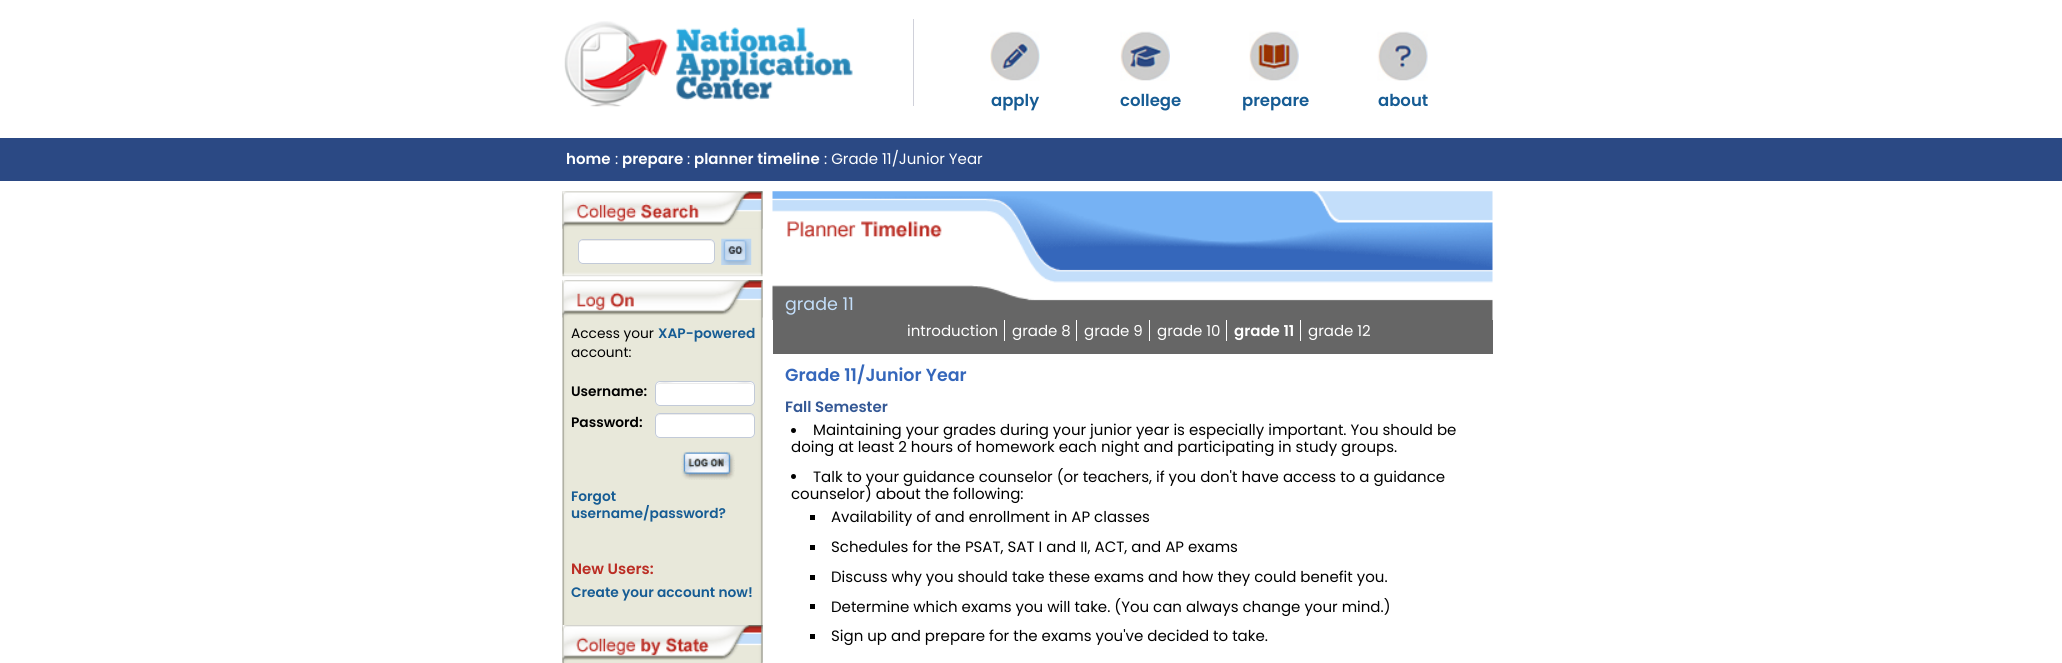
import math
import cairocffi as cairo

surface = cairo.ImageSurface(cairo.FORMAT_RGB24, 2062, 663)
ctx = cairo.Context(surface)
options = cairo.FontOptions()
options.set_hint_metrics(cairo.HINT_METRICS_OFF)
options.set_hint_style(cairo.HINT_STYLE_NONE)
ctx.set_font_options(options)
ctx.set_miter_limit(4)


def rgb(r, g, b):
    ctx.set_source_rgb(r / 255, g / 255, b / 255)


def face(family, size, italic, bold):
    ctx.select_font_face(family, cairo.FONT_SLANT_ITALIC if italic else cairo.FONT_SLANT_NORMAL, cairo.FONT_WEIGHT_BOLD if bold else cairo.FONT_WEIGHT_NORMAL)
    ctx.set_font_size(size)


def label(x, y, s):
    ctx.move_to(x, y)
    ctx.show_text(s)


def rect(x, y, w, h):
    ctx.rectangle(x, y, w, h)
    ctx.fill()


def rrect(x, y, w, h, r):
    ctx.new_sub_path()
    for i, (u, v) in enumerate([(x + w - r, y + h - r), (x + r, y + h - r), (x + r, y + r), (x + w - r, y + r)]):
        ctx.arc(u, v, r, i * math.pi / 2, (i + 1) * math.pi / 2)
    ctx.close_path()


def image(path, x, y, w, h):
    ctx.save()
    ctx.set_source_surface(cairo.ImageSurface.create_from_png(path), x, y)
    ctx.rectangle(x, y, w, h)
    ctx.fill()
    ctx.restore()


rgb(255, 255, 255)
ctx.paint()
image('image0.png', 564, 21, 289, 86)
rgb(208, 209, 218)
rect(913, 19, 1, 87)
image('image1.png', 990, 31, 50, 50)
face('Poppins SemiBold', 16.5, 0, 0)
rgb(22, 92, 148)
label(991, 106, 'apply')
image('image2.png', 1120, 31, 50, 50)
label(1120, 106, 'college')
image('image3.png', 1249, 31, 50, 50)
label(1242, 106, 'prepare')
image('image4.png', 1377, 31, 51, 50)
label(1378, 106, 'about')
rgb(43, 73, 132)
rect(0, 138, 2062, 43)
face('Poppins SemiBold', 15, 0, 0)
rgb(255, 255, 255)
label(566, 164, 'home')
face('Poppins', 15, 0, 0)
label(615, 164, ':')
face('Poppins SemiBold', 15, 0, 0)
label(622, 164, 'prepare')
face('Poppins', 15, 0, 0)
label(687, 164, ':')
face('Poppins SemiBold', 15, 0, 0)
label(694, 164, 'planner timeline')
face('Poppins', 15, 0, 0)
label(824, 164, ': Grade 11/Junior Year')
image('image5.png', 562, 191, 201, 86)
image('image6.png', 562, 191, 201, 38)
rrect(578, 239, 137, 25, 5)
ctx.fill()
rgb(235, 235, 235)
ctx.new_path()
ctx.move_to(582, 241)
ctx.line_to(710, 241)
ctx.curve_to(712, 241, 714, 243, 714, 245)
ctx.line_to(714, 244)
ctx.curve_to(714, 242, 712, 240, 710, 240)
ctx.line_to(583, 240)
ctx.curve_to(581, 240, 579, 242, 579, 244)
ctx.line_to(579, 245)
ctx.curve_to(579, 243, 580, 241, 582, 241)
ctx.close_path()
ctx.fill()
rrect(578.5, 239.5, 136, 24, 4.5)
rgb(194, 202, 216)
ctx.set_line_width(1)
ctx.stroke()
image('image7.png', 721, 238, 31, 27)
image('image8.png', 562, 280, 201, 352)
image('image9.png', 562, 280, 201, 38)
face('Poppins', 13.75, 0, 0)
rgb(0, 0, 0)
label(571, 338, 'Access your')
face('Poppins SemiBold', 13.75, 0, 0)
rgb(22, 92, 148)
label(658, 338, 'XAP-powered')
face('Poppins', 13.75, 0, 0)
rgb(0, 0, 0)
label(571, 357, 'account:')
face('Poppins SemiBold', 13.75, 0, 0)
label(571, 396, 'Username:')
rgb(255, 255, 255)
rrect(655, 381, 100, 25, 5)
ctx.fill()
rgb(235, 235, 235)
ctx.new_path()
ctx.move_to(660, 384)
ctx.line_to(750, 384)
ctx.curve_to(752, 384, 754, 385, 754, 388)
ctx.curve_to(754, 379, 739, 383, 735, 383)
ctx.line_to(675, 383)
ctx.curve_to(671, 383, 656, 379, 656, 388)
ctx.curve_to(656, 385, 658, 384, 660, 384)
ctx.close_path()
ctx.fill()
rrect(655.5, 381.5, 99, 24, 4.5)
rgb(194, 202, 216)
ctx.stroke()
rgb(0, 0, 0)
label(571, 427, 'Password:')
rgb(255, 255, 255)
rrect(655, 413, 100, 25, 5)
ctx.fill()
rgb(235, 235, 235)
ctx.new_path()
ctx.move_to(660, 415)
ctx.line_to(750, 415)
ctx.curve_to(752, 415, 754, 417, 754, 419)
ctx.curve_to(754, 410, 739, 414, 735, 414)
ctx.line_to(675, 414)
ctx.curve_to(671, 414, 656, 410, 656, 419)
ctx.curve_to(656, 417, 658, 415, 660, 415)
ctx.close_path()
ctx.fill()
rrect(655.5, 413.5, 99, 24, 4.5)
rgb(194, 202, 216)
ctx.stroke()
image('image10.png', 681, 451, 54, 29)
rgb(22, 92, 148)
label(571, 501, 'Forgot')
label(571, 518, 'username/password?')
face('Poppins SemiBold', 15, 0, 0)
rgb(187, 45, 36)
label(571, 574, 'New Users:')
face('Poppins SemiBold', 13.75, 0, 0)
rgb(22, 92, 148)
label(571, 597, 'Create your account now!')
image('image11.png', 562, 625, 201, 38)
image('image12.png', 562, 625, 201, 38)
image('image13.png', 772, 191, 721, 92)
image('image14.png', 772, 285, 721, 35)
face('Poppins', 17.5, 0, 0)
rgb(195, 222, 250)
label(785, 310, 'grade 11')
rgb(102, 102, 102)
rect(773, 320, 720, 34)
face('Poppins', 15, 0, 0)
rgb(255, 255, 255)
label(907, 336, 'introduction')
rect(1004, 320, 1, 21)
label(1012, 336, 'grade 8')
rect(1076, 320, 1, 21)
label(1084, 336, 'grade 9')
rect(1149, 320, 1, 21)
label(1157, 336, 'grade 10')
rect(1226, 320, 1, 21)
face('Poppins SemiBold', 15, 0, 0)
label(1234, 336, 'grade 11')
rect(1300, 320, 1, 21)
face('Poppins', 15, 0, 0)
label(1308, 336, 'grade 12')
face('Poppins SemiBold', 17.5, 0, 0)
rgb(53, 103, 187)
label(785, 381, 'Grade 11/Junior Year')
face('Poppins SemiBold', 15, 0, 0)
rgb(52, 88, 149)
label(785, 412, 'Fall Semester')
rgb(0, 0, 0)
ctx.new_path()
ctx.arc(793.5, 430.5, 2.5, 0, 2 * math.pi)
ctx.fill()
face('Poppins', 15, 0, 0)
label(813, 435, 'Maintaining your grades during your junior year is especially important. You should be')
label(791, 452, 'doing at least 2 hours of homework each night and participating in study groups.')
ctx.new_path()
ctx.arc(793.5, 476.5, 2.5, 0, 2 * math.pi)
ctx.fill()
label(813, 482, 'Talk to your guidance counselor (or teachers, if you don\'t have access to a guidance')
label(791, 499, 'counselor) about the following:')
rect(810, 515, 5, 5)
label(831, 522, 'Availability of and enrollment in AP classes')
rect(810, 545, 5, 5)
label(831, 552, 'Schedules for the PSAT, SAT I and II, ACT, and AP exams')
rect(810, 575, 5, 5)
label(831, 582, 'Discuss why you should take these exams and how they could benefit you.')
rect(810, 604, 5, 5)
label(831, 612, 'Determine which exams you will take. (You can always change your mind.)')
rect(810, 634, 5, 5)
label(831, 641, 'Sign up and prepare for the exams you\'ve decided to take.')
surface.write_to_png('render.png')
